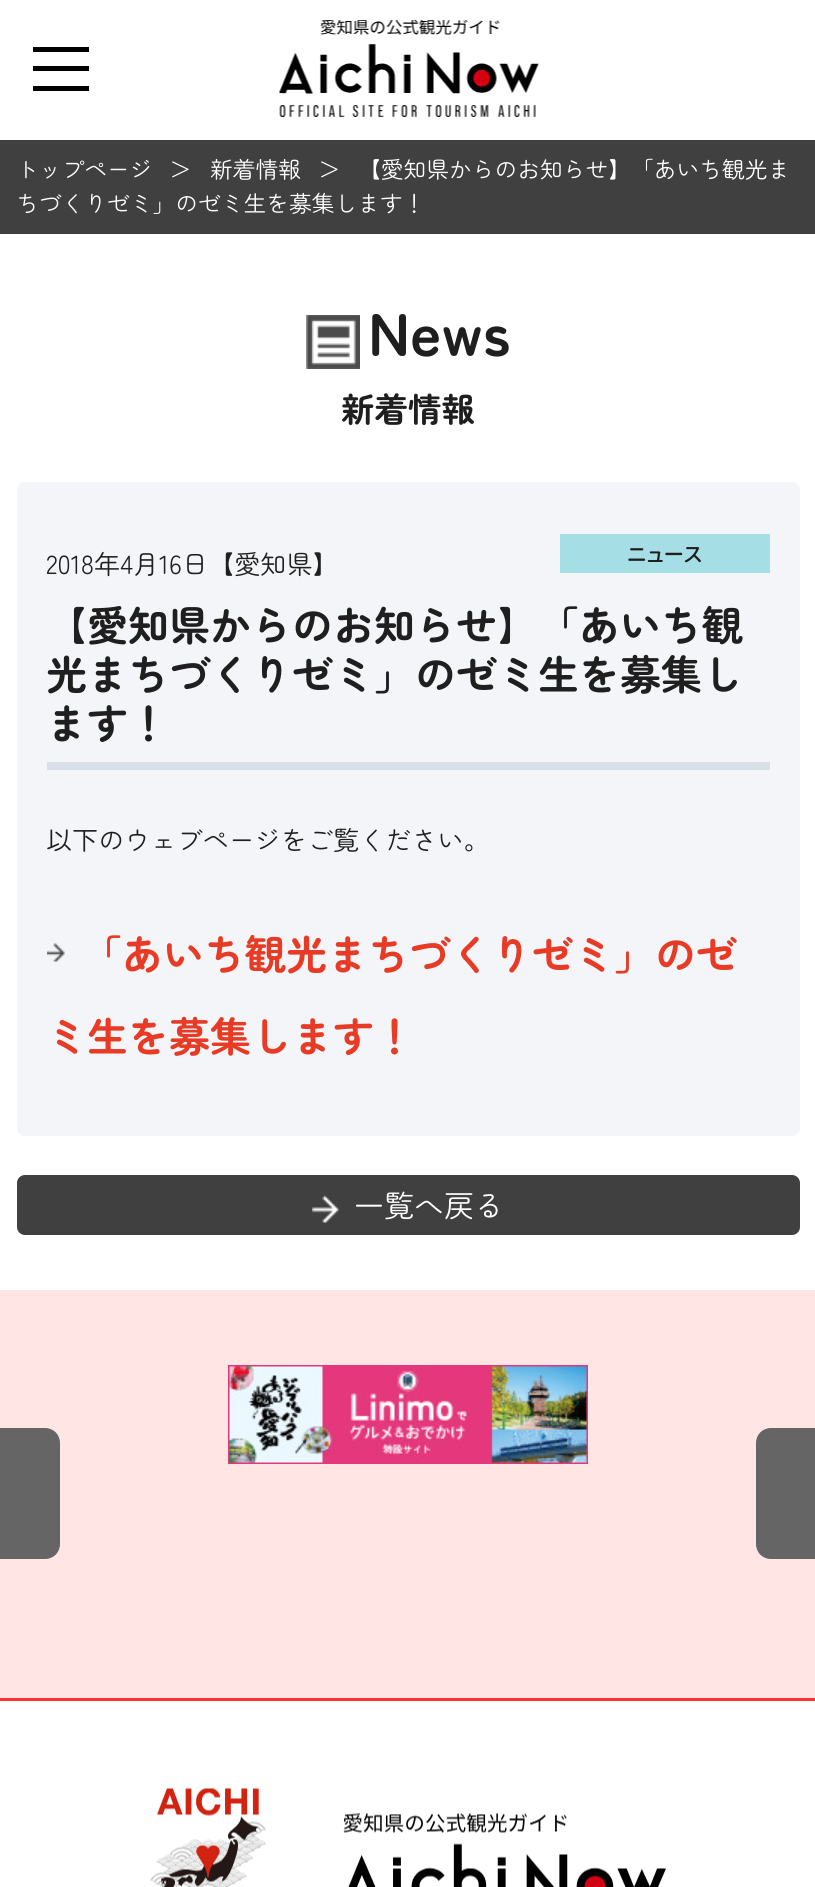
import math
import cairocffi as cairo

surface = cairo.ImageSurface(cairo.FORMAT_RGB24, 815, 1887)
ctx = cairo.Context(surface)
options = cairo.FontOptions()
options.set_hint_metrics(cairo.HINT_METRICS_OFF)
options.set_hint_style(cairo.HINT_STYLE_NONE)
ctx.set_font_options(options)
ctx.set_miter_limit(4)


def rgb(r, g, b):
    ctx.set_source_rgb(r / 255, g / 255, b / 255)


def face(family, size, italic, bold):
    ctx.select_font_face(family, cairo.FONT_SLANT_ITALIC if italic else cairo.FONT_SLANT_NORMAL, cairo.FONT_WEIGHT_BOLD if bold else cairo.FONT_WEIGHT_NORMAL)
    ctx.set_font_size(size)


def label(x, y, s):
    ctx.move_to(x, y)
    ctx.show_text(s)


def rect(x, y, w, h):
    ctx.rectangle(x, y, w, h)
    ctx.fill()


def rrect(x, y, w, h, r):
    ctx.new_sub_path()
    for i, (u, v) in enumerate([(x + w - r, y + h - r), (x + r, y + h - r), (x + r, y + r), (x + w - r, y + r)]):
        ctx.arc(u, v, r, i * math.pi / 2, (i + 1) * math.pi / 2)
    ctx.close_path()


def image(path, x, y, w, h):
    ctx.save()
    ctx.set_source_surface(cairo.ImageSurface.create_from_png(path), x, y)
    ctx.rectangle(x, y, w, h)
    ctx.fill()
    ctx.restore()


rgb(255, 255, 255)
ctx.paint()
rgb(1, 1, 1)
rect(33, 47, 56, 5)
rect(33, 66, 56, 5)
rect(33, 86, 56, 5)
image('image0.png', 279, 20, 260, 97)
rgb(64, 64, 64)
rect(0, 140, 815, 94)
face('Zen Maru Gothic', 22.75, 0, 0)
rgb(255, 255, 255)
label(318, 178, '＞')
label(358, 178, '【愛知県からのお知らせ】「あいち観光ま')
label(16, 212, 'ちづくりゼミ」のゼミ生を募集します！')
label(16, 178, 'トップページ')
label(169, 178, '＞')
label(210, 178, '新着情報')
image('image1.png', 306, 315, 54, 54)
face('Zen Maru Gothic', 60, 0, 1)
rgb(31, 31, 31)
label(368, 356, 'News')
face('Zen Maru Gothic', 33.5, 0, 1)
label(341, 422, '新着情報')
rgb(243, 245, 248)
rrect(17, 482, 783, 654, 8)
ctx.fill()
face('Zen Maru Gothic', 26.1, 0, 0)
rgb(31, 31, 31)
label(46, 574, '2018年4月16日【愛知県】')
rgb(166, 222, 229)
rect(560, 534, 210, 39)
face('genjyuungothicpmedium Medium', 21, 0, 0)
rgb(31, 31, 31)
label(627, 562, 'ニュース')
rgb(218, 223, 229)
rect(47, 762, 723, 8)
face('Zen Maru Gothic', 41, 0, 1)
rgb(31, 31, 31)
label(46, 641, '【愛知県からのお知らせ】「あいち観')
label(46, 690, '光まちづくりゼミ」のゼミ生を募集し')
label(46, 739, 'ます！')
face('Zen Maru Gothic', 26.1, 0, 0)
label(46, 850, '以下のウェブページをご覧ください。')
image('image2.png', 47, 943, 18, 19)
face('Zen Maru Gothic', 41, 0, 1)
rgb(231, 59, 38)
label(81, 970, '「あいち観光まちづくりゼミ」のゼ')
label(46, 1052, 'ミ生を募集します！')
rgb(64, 64, 64)
rrect(17, 1175, 783, 60, 8)
ctx.fill()
image('image3.png', 312, 1195, 27, 28)
face('Zen Maru Gothic', 30, 0, 0)
rgb(255, 255, 255)
label(354, 1217, '一覧へ戻る')
rgb(255, 229, 228)
rect(0, 1290, 815, 408)
image('image4.png', 228, 1365, 360, 99)
rgb(101, 101, 101)
ctx.new_path()
ctx.move_to(0, 1428)
ctx.line_to(45, 1428)
ctx.curve_to(53.5, 1428, 60, 1434.5, 60, 1443)
ctx.line_to(60, 1544)
ctx.curve_to(60, 1552.5, 53.5, 1559, 45, 1559)
ctx.line_to(0, 1559)
ctx.close_path()
ctx.fill()
ctx.new_path()
ctx.move_to(771, 1428)
ctx.line_to(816, 1428)
ctx.line_to(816, 1559)
ctx.line_to(771, 1559)
ctx.curve_to(762.5, 1559, 756, 1552.5, 756, 1544)
ctx.line_to(756, 1443)
ctx.curve_to(756, 1434.5, 762.5, 1428, 771, 1428)
ctx.close_path()
ctx.fill()
rgb(255, 50, 50)
rect(0, 1698, 815, 3)
image('image5.png', 150, 1788, 516, 99)
surface.write_to_png('render.png')
